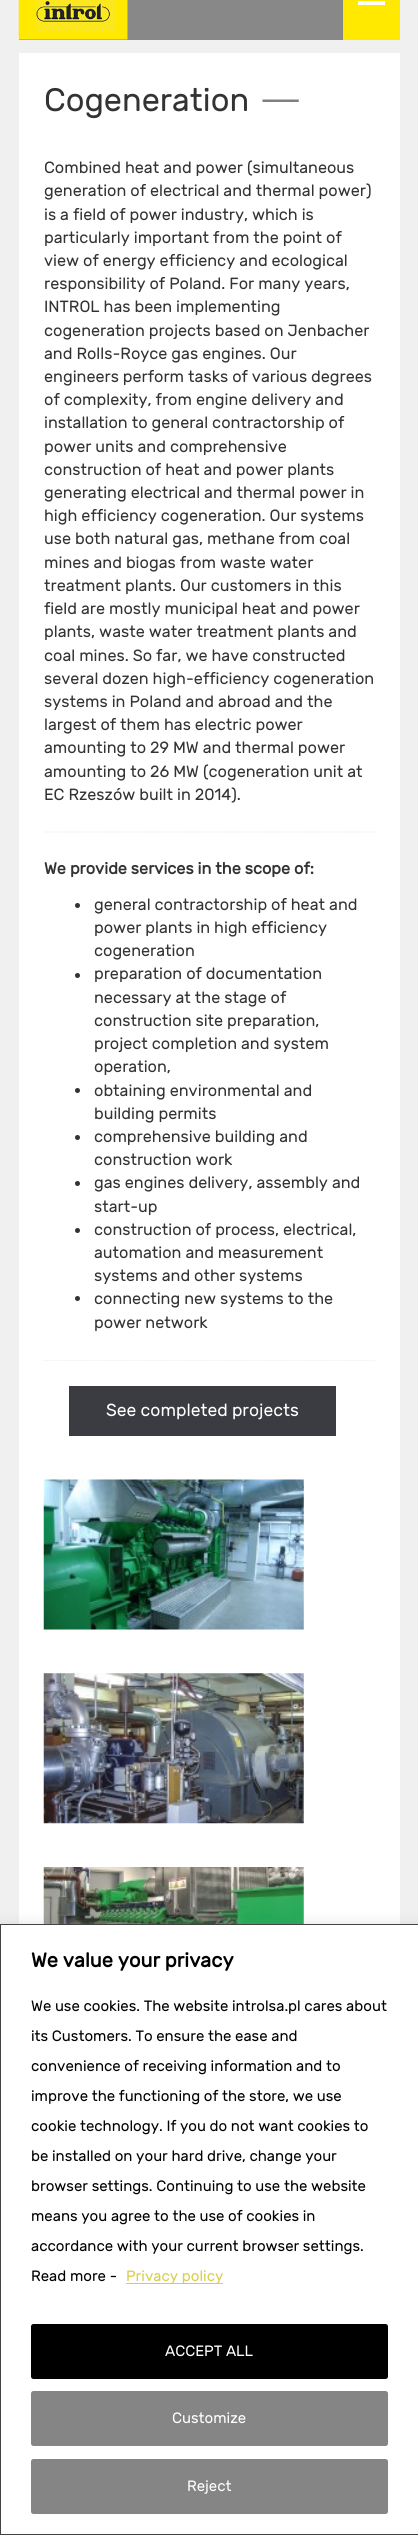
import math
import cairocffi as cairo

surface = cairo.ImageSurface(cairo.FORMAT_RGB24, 418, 2535)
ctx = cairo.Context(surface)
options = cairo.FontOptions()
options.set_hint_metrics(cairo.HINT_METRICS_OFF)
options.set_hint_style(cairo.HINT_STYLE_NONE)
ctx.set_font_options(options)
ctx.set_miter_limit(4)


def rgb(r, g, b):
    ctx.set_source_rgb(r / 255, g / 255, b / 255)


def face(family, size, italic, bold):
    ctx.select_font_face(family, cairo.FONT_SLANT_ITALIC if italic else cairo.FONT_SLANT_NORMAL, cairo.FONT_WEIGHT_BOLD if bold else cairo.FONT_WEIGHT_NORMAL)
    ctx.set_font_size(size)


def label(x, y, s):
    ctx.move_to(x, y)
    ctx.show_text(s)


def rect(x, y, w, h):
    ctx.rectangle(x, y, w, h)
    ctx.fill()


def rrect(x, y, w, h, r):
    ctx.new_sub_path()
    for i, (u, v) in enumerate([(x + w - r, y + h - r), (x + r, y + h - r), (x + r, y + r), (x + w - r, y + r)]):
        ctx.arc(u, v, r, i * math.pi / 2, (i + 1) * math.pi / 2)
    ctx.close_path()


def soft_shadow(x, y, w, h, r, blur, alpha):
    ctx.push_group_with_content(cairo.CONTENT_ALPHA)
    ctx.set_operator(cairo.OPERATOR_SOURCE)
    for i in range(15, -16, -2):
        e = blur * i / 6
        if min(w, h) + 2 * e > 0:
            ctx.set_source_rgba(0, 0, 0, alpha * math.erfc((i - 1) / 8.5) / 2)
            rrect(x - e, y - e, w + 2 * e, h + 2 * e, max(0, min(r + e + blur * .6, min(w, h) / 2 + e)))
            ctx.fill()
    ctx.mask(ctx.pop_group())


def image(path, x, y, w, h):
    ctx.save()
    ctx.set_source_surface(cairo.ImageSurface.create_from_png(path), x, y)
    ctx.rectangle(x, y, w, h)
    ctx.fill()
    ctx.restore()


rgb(240, 240, 240)
ctx.paint()
rgb(136, 136, 136)
rect(19, 0, 324, 40)
image('image0.png', 18, 0, 110, 40)
rgb(255, 233, 0)
rect(343, 0, 57, 40)
rgb(255, 255, 255)
rect(358, 1, 27, 4)
rect(19, 53, 381, 1871)
face('Rubik', 32.5, 0, 0)
rgb(51, 51, 51)
label(44, 111, 'Cogeneration')
image('image1.png', 262, 99, 37, 3)
face('Rubik', 16.25, 0, 0)
label(44, 173, 'Combined heat and power (simultaneous')
label(44, 196, 'generation of electrical and thermal power)')
label(44, 220, 'is a field of power industry, which is')
label(44, 243, 'particularly important from the point of')
label(44, 266, 'view of energy efficiency and ecological')
label(44, 289, 'responsibility of Poland. For many years,')
label(44, 312, 'INTROL has been implementing')
label(44, 336, 'cogeneration projects based on Jenbacher')
label(44, 359, 'and Rolls-Royce gas engines. Our')
label(44, 382, 'engineers perform tasks of various degrees')
label(44, 405, 'of complexity, from engine delivery and')
label(44, 428, 'installation to general contractorship of')
label(44, 452, 'power units and comprehensive')
label(44, 475, 'construction of heat and power plants')
label(44, 498, 'generating electrical and thermal power in')
label(44, 521, 'high efficiency cogeneration. Our systems')
label(44, 544, 'use both natural gas, methane from coal')
label(44, 568, 'mines and biogas from waste water')
label(44, 591, 'treatment plants. Our customers in this')
label(44, 614, 'field are mostly municipal heat and power')
label(44, 637, 'plants, waste water treatment plants and')
label(44, 661, 'coal mines. So far, we have constructed')
label(44, 684, 'several dozen high-efficiency cogeneration')
label(44, 707, 'systems in Poland and abroad and the')
label(44, 730, 'largest of them has electric power')
label(44, 753, 'amounting to 29 MW and thermal power')
label(44, 777, 'amounting to 26 MW (cogeneration unit at')
label(44, 800, 'EC Rzeszów built in 2014).')
ctx.new_path()
ctx.move_to(44, 832)
ctx.line_to(375, 832)
rgb(238, 238, 238)
ctx.set_line_width(1.2)
ctx.set_dash([1.25, 1.25])
ctx.stroke()
face('Rubik', 16.25, 0, 1)
rgb(51, 51, 51)
label(44, 874, 'We provide services in the scope of:')
ctx.new_path()
ctx.arc(77.5, 905.5, 2.5, 0, 2 * math.pi)
ctx.fill()
face('Rubik', 16.25, 0, 0)
label(94, 910, 'general contractorship of heat and')
label(94, 933, 'power plants in high efficiency')
label(94, 956, 'cogeneration')
ctx.new_path()
ctx.arc(77.5, 975.5, 2.5, 0, 2 * math.pi)
ctx.fill()
label(94, 979, 'preparation of documentation')
label(94, 1003, 'necessary at the stage of')
label(94, 1026, 'construction site preparation,')
label(94, 1049, 'project completion and system')
label(94, 1072, 'operation,')
ctx.new_path()
ctx.arc(77.5, 1090.5, 2.5, 0, 2 * math.pi)
ctx.fill()
label(94, 1096, 'obtaining environmental and')
label(94, 1119, 'building permits')
ctx.new_path()
ctx.arc(77.5, 1137.5, 2.5, 0, 2 * math.pi)
ctx.fill()
label(94, 1142, 'comprehensive building and')
label(94, 1165, 'construction work')
ctx.new_path()
ctx.arc(77.5, 1183.5, 2.5, 0, 2 * math.pi)
ctx.fill()
label(94, 1188, 'gas engines delivery, assembly and')
label(94, 1212, 'start-up')
ctx.new_path()
ctx.arc(77.5, 1230.5, 2.5, 0, 2 * math.pi)
ctx.fill()
label(94, 1235, 'construction of process, electrical,')
label(94, 1258, 'automation and measurement')
label(94, 1281, 'systems and other systems')
ctx.new_path()
ctx.arc(77.5, 1298.5, 2.5, 0, 2 * math.pi)
ctx.fill()
label(94, 1304, 'connecting new systems to the')
label(94, 1328, 'power network')
ctx.new_path()
ctx.move_to(44, 1360.5)
ctx.line_to(375, 1360.5)
rgb(238, 238, 238)
ctx.stroke()
rgb(58, 60, 65)
rect(69, 1386, 267, 50)
face('Rubik', 17.5, 0, 0)
rgb(255, 255, 255)
label(106, 1416, 'See completed projects')
image('image2.png', 43, 1479, 261, 151)
image('image3.png', 43, 1673, 261, 151)
image('image4.png', 43, 1867, 261, 57)
rgb(172, 171, 171)
soft_shadow(0, 1923, 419, 611, 0, 6, 0.3)
rgb(255, 255, 255)
ctx.rectangle(0.5, 1924.5, 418, 610)
ctx.fill_preserve()
rgb(68, 68, 68)
ctx.set_line_width(1)
ctx.set_dash([])
ctx.stroke()
face('Rubik', 20, 0, 1)
rgb(0, 0, 0)
label(31, 1967, 'We value your privacy')
face('Rubik', 15, 0, 0)
label(31, 2011, 'We use cookies. The website introlsa.pl cares about')
label(31, 2041, 'its Customers. To ensure the ease and')
label(31, 2071, 'convenience of receiving information and to')
label(31, 2101, 'improve the functioning of the store, we use')
label(31, 2131, 'cookie technology. If you do not want cookies to')
label(31, 2161, 'be installed on your hard drive, change your')
label(31, 2191, 'browser settings. Continuing to use the website')
label(31, 2221, 'means you agree to the use of cookies in')
label(31, 2251, 'accordance with your current browser settings.')
label(31, 2281, 'Read more -')
rgb(217, 205, 81)
rect(126, 2283, 97, 1)
label(126, 2281, 'Privacy policy')
rgb(0, 0, 0)
rrect(32.5, 2325.5, 354, 52, 1)
ctx.fill_preserve()
ctx.set_line_width(3)
ctx.stroke()
rgb(255, 255, 255)
label(165, 2356, 'ACCEPT ALL')
rgb(133, 133, 133)
rrect(32.5, 2392.5, 354, 52, 1)
ctx.fill_preserve()
ctx.stroke()
rgb(255, 255, 255)
label(172, 2423, 'Customize')
rgb(133, 133, 133)
rrect(32.5, 2460.5, 354, 52, 1)
ctx.fill_preserve()
ctx.stroke()
rgb(255, 255, 255)
label(187, 2491, 'Reject')
surface.write_to_png('render.png')
